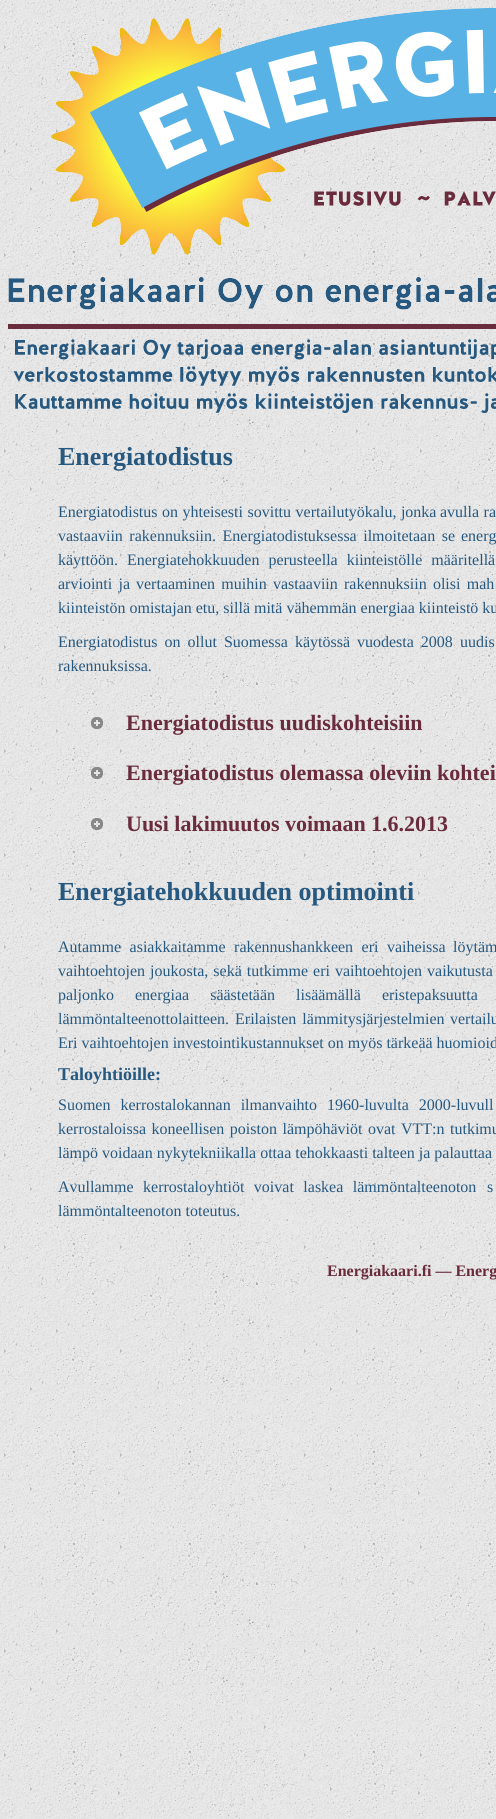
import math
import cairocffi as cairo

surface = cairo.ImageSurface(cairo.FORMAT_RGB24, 496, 1819)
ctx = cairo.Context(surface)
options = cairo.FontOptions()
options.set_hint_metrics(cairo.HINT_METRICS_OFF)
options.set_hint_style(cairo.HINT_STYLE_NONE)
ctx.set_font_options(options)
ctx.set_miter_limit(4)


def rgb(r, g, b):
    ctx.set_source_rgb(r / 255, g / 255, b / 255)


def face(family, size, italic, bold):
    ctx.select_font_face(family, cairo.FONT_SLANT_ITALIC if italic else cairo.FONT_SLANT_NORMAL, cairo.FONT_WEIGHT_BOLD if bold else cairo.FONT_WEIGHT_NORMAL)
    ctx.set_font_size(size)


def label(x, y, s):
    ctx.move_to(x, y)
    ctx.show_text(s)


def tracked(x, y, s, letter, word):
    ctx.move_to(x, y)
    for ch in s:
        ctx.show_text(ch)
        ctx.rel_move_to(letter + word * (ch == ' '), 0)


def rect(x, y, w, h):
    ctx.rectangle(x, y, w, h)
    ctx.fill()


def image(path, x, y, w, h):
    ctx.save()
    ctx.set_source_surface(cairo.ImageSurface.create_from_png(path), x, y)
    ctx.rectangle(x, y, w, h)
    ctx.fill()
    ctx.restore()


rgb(255, 255, 255)
ctx.paint()
image('image0.png', 0, 0, 496, 1819)
image('image1.png', 51, 8, 445, 247)
image('image2.png', 314, 191, 116, 15)
image('image3.png', 444, 191, 52, 15)
image('image4.png', 8, 277, 488, 33)
rgb(106, 43, 61)
rect(8, 324, 488, 5)
image('image5.png', 13, 339, 483, 74)
face('Liberation Serif', 26, 0, 1)
rgb(39, 89, 128)
label(58, 465, 'Energiatodistus')
face('Liberation Serif', 16, 0, 0)
tracked(58, 517, 'Energiatodistus on yhteisesti sovittu vertailutyökalu, jonka', 0, 0.5)
tracked(440, 517, 'avulla ra', 0, 0.5)
tracked(58, 541, 'vastaaviin rakennuksiin. Energiatodistuksessa ilmoitetaan se', 0, 2.5)
tracked(461, 541, 'energ', 0, 2.5)
tracked(58, 565, 'käyttöön. Energiatehokkuuden perusteella kiinteistölle määritellä', 0, 5)
tracked(58, 589, 'arviointi ja', 0, 2.25)
tracked(136, 589, 'vertaaminen muihin vastaaviin rakennuksiin olisi mah', 0, 2.25)
label(58, 613, 'kiinteistön omistajan etu, sillä mitä vähemmän energiaa kiinteistö ku')
tracked(58, 647, 'Energiatodistus on ollut Suomessa käytössä vuodesta 2008', 0, 3)
tracked(460, 647, 'uudis', 0, 3)
label(58, 671, 'rakennuksissa.')
image('image6.png', 91, 717, 12, 12)
face('Liberation Serif', 22, 0, 1)
rgb(106, 43, 61)
label(126, 730, 'Energiatodistus uudiskohteisiin')
image('image7.png', 91, 767, 12, 12)
label(126, 780, 'Energiatodistus olemassa oleviin kohtei')
image('image8.png', 91, 818, 12, 12)
label(126, 831, 'Uusi lakimuutos voimaan 1.6.2013')
face('Liberation Serif', 26, 0, 1)
rgb(39, 89, 128)
label(58, 900, 'Energiatehokkuuden optimointi')
face('Liberation Serif', 16, 0, 0)
tracked(58, 952, 'Autamme asiakkaitamme rakennushankkeen eri vaiheissa', 0, 4.5)
tracked(453, 952, 'löytäm', 0, 4.5)
tracked(58, 976, 'vaihtoehtojen joukosta, sekä tutkimme eri vaihtoehtojen vaikutusta', 0, 1)
tracked(58, 1000, 'paljonko energiaa säästetään lisäämällä eristepaksuutta', 0, 17)
tracked(58, 1024, 'lämmöntalteenottolaitteen. Erilaisten lämmitysjärjestelmien', 0, 2)
tracked(450, 1024, 'vertailu', 0, 2)
label(58, 1048, 'Eri vaihtoehtojen investointikustannukset on myös tärkeää huomioid')
face('Liberation Serif', 18, 0, 1)
label(58, 1080, 'Taloyhtiöille:')
face('Liberation Serif', 16, 0, 0)
tracked(58, 1110, 'Suomen kerrostalokannan ilmanvaihto 1960-luvulta 2000-luvull', 0, 6)
tracked(58, 1134, 'kerrostaloissa koneellisen poiston lämpöhäviöt ovat VTT:n', 0, 1.5)
tracked(450, 1134, 'tutkimu', 0, 1.5)
label(58, 1158, 'lämpö voidaan nykytekniikalla ottaa tehokkaasti talteen ja palauttaa')
tracked(58, 1192, 'Avullamme kerrostaloyhtiöt voivat laskea lämmöntalteenoton', 0, 5.5)
tracked(487, 1192, 's', 0, 5.5)
label(58, 1216, 'lämmöntalteenoton toteutus.')
face('Liberation Serif', 16, 0, 1)
rgb(106, 43, 61)
label(327, 1276, 'Energiakaari.fi — Energ')
surface.write_to_png('render.png')
